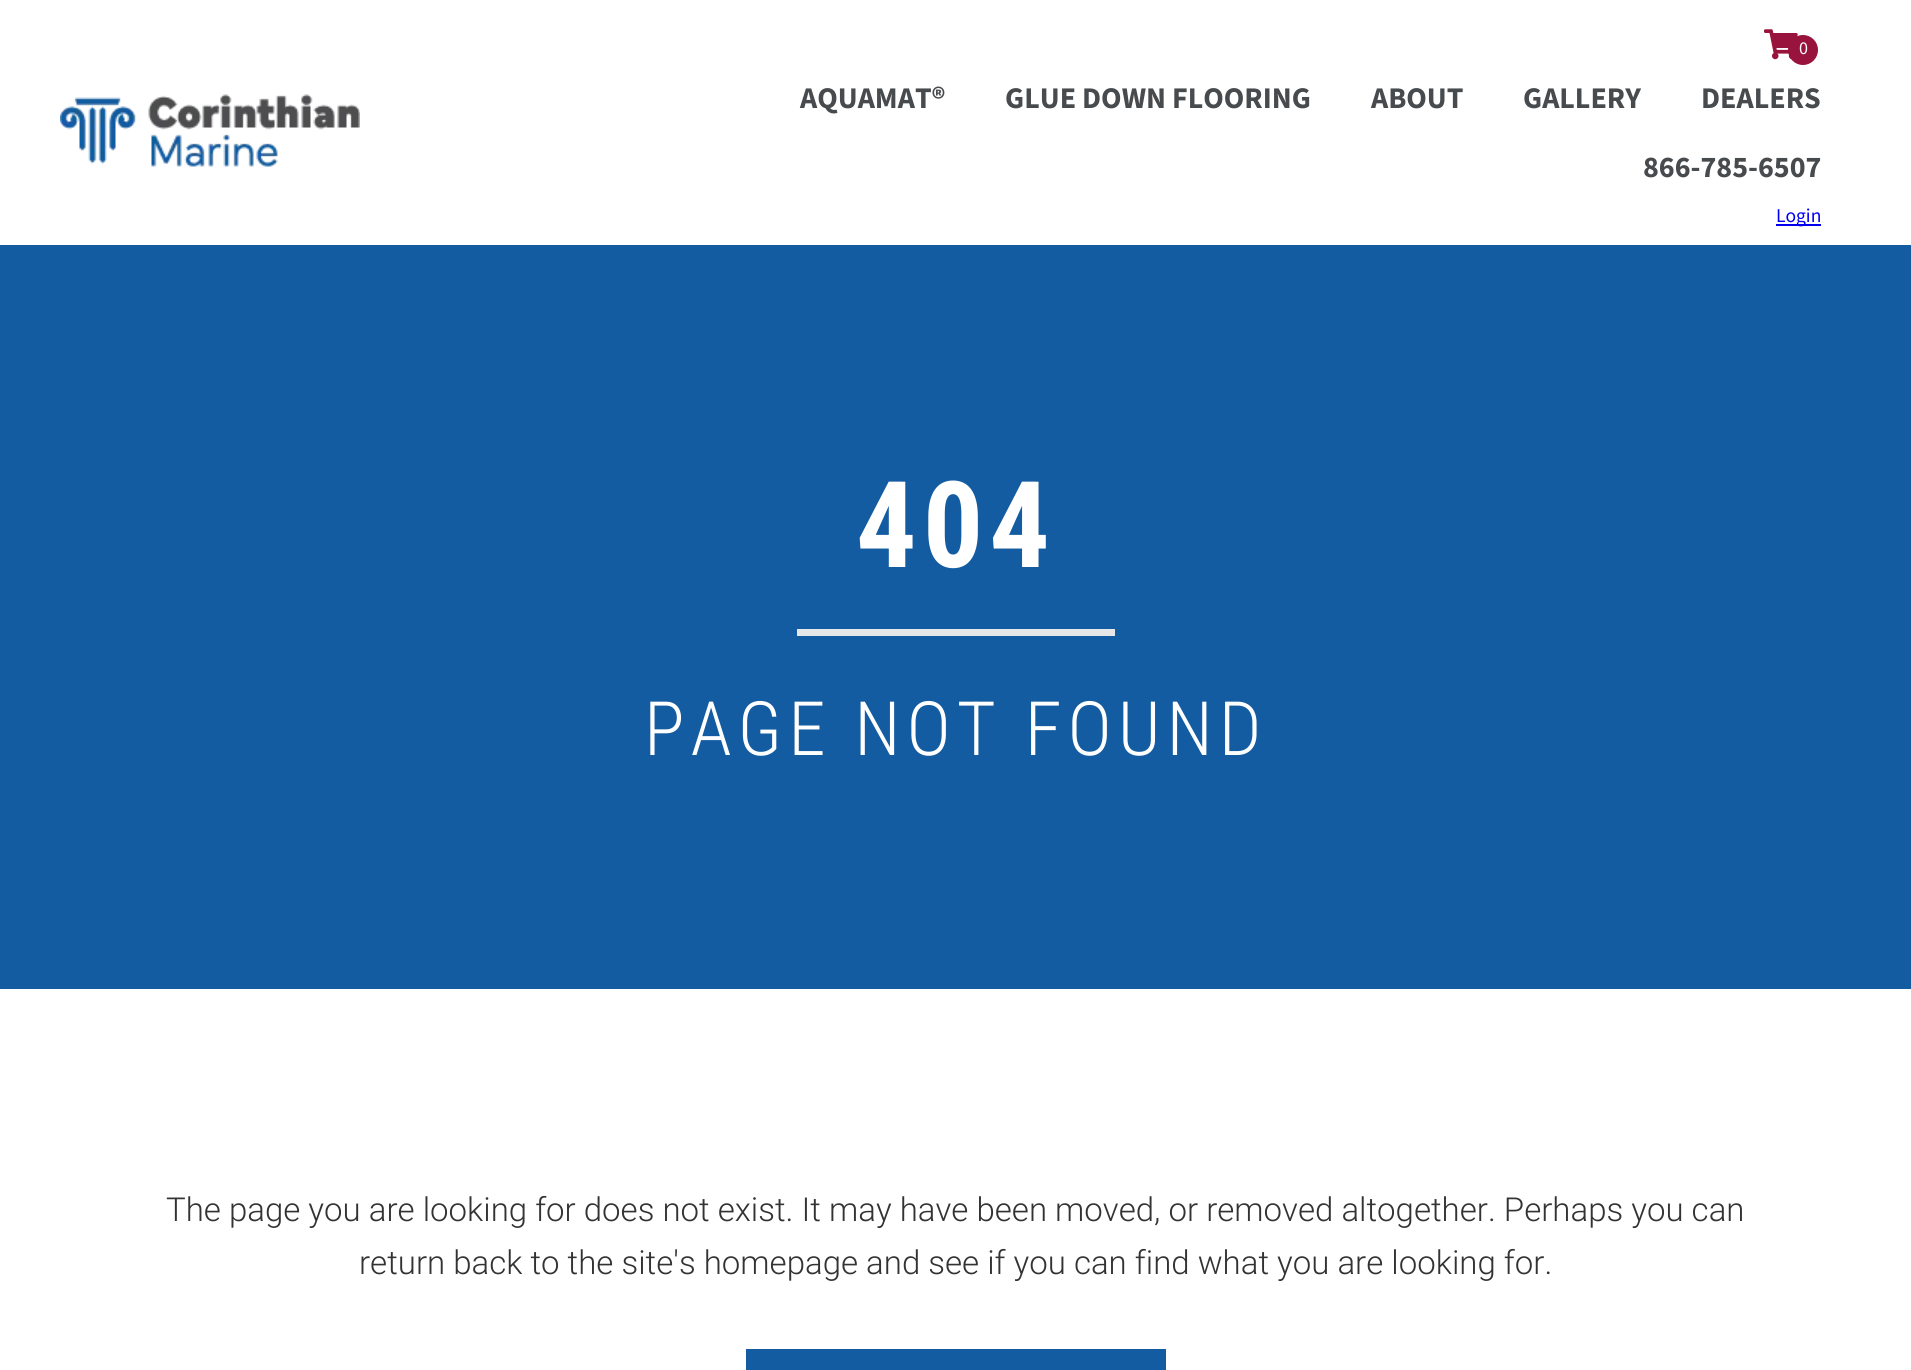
import math
import cairocffi as cairo

surface = cairo.ImageSurface(cairo.FORMAT_RGB24, 1911, 1370)
ctx = cairo.Context(surface)
options = cairo.FontOptions()
options.set_hint_metrics(cairo.HINT_METRICS_OFF)
options.set_hint_style(cairo.HINT_STYLE_NONE)
ctx.set_font_options(options)
ctx.set_miter_limit(4)


def rgb(r, g, b):
    ctx.set_source_rgb(r / 255, g / 255, b / 255)


def face(family, size, italic, bold):
    ctx.select_font_face(family, cairo.FONT_SLANT_ITALIC if italic else cairo.FONT_SLANT_NORMAL, cairo.FONT_WEIGHT_BOLD if bold else cairo.FONT_WEIGHT_NORMAL)
    ctx.set_font_size(size)


def label(x, y, s):
    ctx.move_to(x, y)
    ctx.show_text(s)


def tracked(x, y, s, letter, word):
    ctx.move_to(x, y)
    for ch in s:
        ctx.show_text(ch)
        ctx.rel_move_to(letter + word * (ch == ' '), 0)


def rect(x, y, w, h):
    ctx.rectangle(x, y, w, h)
    ctx.fill()


def image(path, x, y, w, h):
    ctx.save()
    ctx.set_source_surface(cairo.ImageSurface.create_from_png(path), x, y)
    ctx.rectangle(x, y, w, h)
    ctx.fill()
    ctx.restore()


rgb(255, 255, 255)
ctx.paint()
image('image0.png', 60, 94, 300, 73)
image('image1.png', 1764, 29, 34, 31)
rgb(152, 20, 60)
ctx.arc(1803, 50, 15, 0, 2 * math.pi)
ctx.fill()
face('Source Sans 3', 18, 0, 0)
rgb(255, 255, 255)
label(1799, 54, '0')
face('Source Sans 3', 30, 0, 1)
rgb(72, 75, 78)
label(800, 108, 'AQUAMAT®')
label(1005, 108, 'GLUE DOWN FLOORING')
label(1371, 108, 'ABOUT')
label(1523, 108, 'GALLERY')
label(1701, 108, 'DEALERS')
label(1643, 177, '866-785-6507')
rgb(0, 0, 238)
rect(1776, 224, 45, 2)
face('Source Sans 3', 19.5, 0, 0)
label(1776, 222, 'Login')
rgb(20, 92, 161)
rect(0, 245, 1911, 744)
face('Roboto Condensed', 120, 0, 1)
rgb(255, 255, 255)
tracked(856, 567, '404', 6, 0)
rgb(229, 231, 233)
rect(797, 629, 318, 7)
face('Roboto Condensed Light', 75, 0, 0)
rgb(255, 255, 255)
tracked(644, 755, 'PAGE NOT FOUND', 6, 0)
face('Roboto Light', 33, 0, 0)
rgb(51, 51, 51)
label(166, 1221, 'The page you are looking for does not exist. It may have been moved, or removed altogether. Perhaps you can')
label(359, 1274, 'return back to the site\'s homepage and see if you can find what you are looking for.')
rgb(20, 92, 161)
rect(746, 1349, 420, 21)
surface.write_to_png('render.png')
